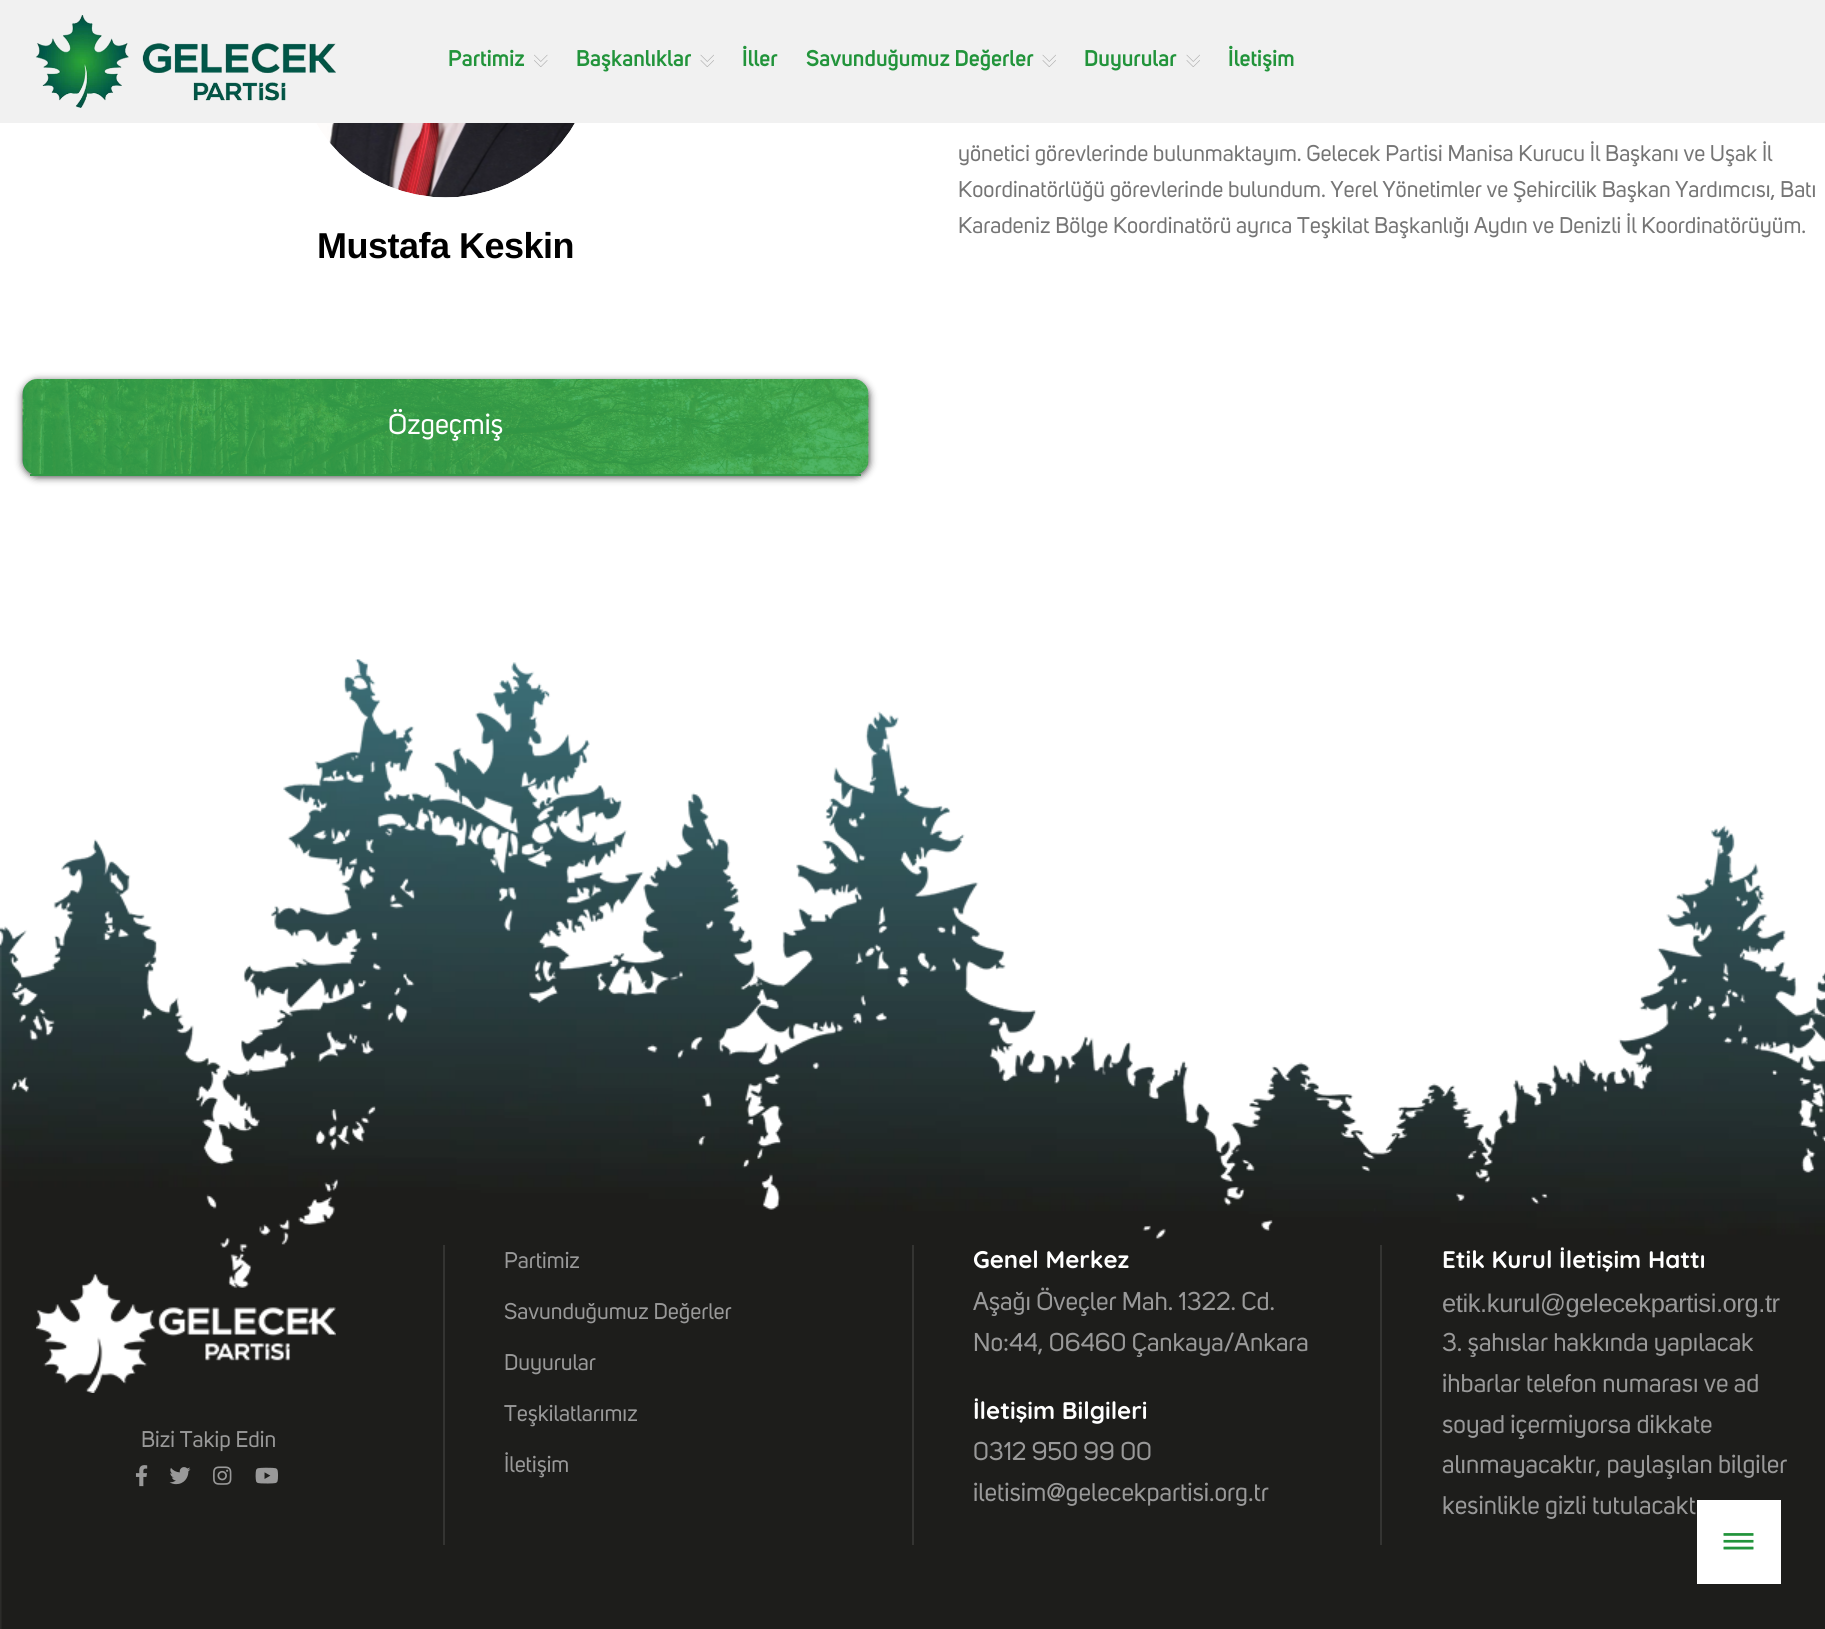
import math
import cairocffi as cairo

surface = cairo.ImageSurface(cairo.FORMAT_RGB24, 1825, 1629)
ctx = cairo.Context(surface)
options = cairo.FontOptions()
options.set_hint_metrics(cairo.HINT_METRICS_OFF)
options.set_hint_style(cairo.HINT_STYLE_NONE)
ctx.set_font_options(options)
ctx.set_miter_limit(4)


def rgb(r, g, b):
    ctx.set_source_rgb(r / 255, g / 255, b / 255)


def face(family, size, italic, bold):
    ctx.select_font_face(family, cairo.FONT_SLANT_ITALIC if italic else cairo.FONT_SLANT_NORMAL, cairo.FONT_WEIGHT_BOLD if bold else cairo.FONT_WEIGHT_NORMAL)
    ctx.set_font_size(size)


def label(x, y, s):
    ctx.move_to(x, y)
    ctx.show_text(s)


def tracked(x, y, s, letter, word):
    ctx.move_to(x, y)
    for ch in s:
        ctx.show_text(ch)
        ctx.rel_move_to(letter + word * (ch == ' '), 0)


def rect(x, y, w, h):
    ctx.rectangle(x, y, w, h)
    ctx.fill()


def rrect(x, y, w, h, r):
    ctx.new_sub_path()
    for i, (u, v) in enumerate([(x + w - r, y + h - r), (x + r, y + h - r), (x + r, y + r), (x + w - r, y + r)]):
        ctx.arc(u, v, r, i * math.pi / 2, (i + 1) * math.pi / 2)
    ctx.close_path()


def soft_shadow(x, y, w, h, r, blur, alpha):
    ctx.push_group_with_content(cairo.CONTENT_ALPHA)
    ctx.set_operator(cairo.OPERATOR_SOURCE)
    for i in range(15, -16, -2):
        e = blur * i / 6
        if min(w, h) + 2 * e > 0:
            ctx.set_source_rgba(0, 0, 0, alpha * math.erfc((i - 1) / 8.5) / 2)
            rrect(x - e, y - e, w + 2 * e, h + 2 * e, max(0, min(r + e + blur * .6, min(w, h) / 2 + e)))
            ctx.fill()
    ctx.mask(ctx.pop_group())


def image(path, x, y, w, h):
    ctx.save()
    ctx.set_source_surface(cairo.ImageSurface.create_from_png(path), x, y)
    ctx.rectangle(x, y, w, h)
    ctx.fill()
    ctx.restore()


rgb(255, 255, 255)
ctx.paint()
rgb(241, 241, 241)
rect(0, 0, 1825, 123)
image('image0.png', 35, 15, 301, 93)
face('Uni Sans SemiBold', 22.5, 0, 0)
rgb(34, 148, 59)
label(448, 66, 'Partimiz')
image('image1.png', 534, 54, 14, 13)
label(576, 66, 'Başkanlıklar')
image('image2.png', 700, 54, 14, 13)
label(742, 66, 'İller')
label(806, 66, 'Savunduğumuz Değerler')
image('image2.png', 1042, 54, 14, 13)
label(1084, 66, 'Duyurular')
image('image2.png', 1186, 54, 14, 13)
label(1228, 66, 'İletişim')
face('Uni Sans', 22.5, 0, 0)
rgb(117, 117, 117)
label(958, 161, 'yönetici görevlerinde bulunmaktayım. Gelecek Partisi Manisa Kurucu İl Başkanı ve Uşak İl')
label(958, 197, 'Koordinatörlüğü görevlerinde bulundum. Yerel Yönetimler ve Şehircilik Başkan Yardımcısı, Batı')
label(958, 233, 'Karadeniz Bölge Koordinatörü ayrıca Teşkilat Başkanlığı Aydın ve Denizli İl Koordinatörüyüm.')
image('image3.png', 316, 123, 259, 75)
face('Liberation Sans', 36, 0, 1)
rgb(0, 0, 0)
tracked(317, 258, 'Mustafa Keskin', -0.5, 0)
rgb(0, 0, 0)
soft_shadow(23, 381, 846, 96, 15, 4, 0.75)
image('image4.png', 22, 379, 847, 95)
rgb(50, 153, 70)
rect(30, 474, 831, 2)
face('Uni Sans', 28.5, 0, 0)
rgb(255, 255, 255)
label(388, 434, 'Özgeçmiş')
image('image5.png', 0, 659, 1825, 970)
rgb(52, 52, 50)
rect(443, 1245, 2, 300)
image('image6.png', 36, 1274, 300, 119)
face('Uni Sans', 22.5, 0, 0)
rgb(153, 153, 153)
label(141, 1447, 'Bizi Takip Edin')
image('image7.png', 135, 1465, 13, 22)
image('image8.png', 169, 1467, 22, 18)
image('image9.png', 213, 1466, 19, 19)
image('image10.png', 255, 1467, 23, 17)
rgb(52, 52, 50)
rect(912, 1245, 2, 300)
rgb(153, 153, 153)
label(504, 1268, 'Partimiz')
label(504, 1319, 'Savunduğumuz Değerler')
label(504, 1370, 'Duyurular')
label(504, 1421, 'Teşkilatlarımız')
label(504, 1472, 'İletişim')
rgb(52, 52, 50)
rect(1380, 1245, 2, 300)
face('Quicksand', 24, 0, 1)
rgb(255, 255, 255)
label(973, 1268, 'Genel Merkez')
face('Uni Sans', 25.5, 0, 0)
rgb(153, 153, 153)
label(973, 1310, 'Aşağı Öveçler Mah. 1322. Cd.')
label(973, 1351, 'No:44, 06460 Çankaya/Ankara')
face('Quicksand', 24, 0, 1)
rgb(255, 255, 255)
label(973, 1419, 'İletişim Bilgileri')
face('Uni Sans', 25.5, 0, 0)
rgb(153, 153, 153)
label(973, 1460, '0312 950 99 00')
label(973, 1501, 'iletisim@gelecekpartisi.org.tr')
face('Quicksand', 24, 0, 1)
rgb(255, 255, 255)
label(1442, 1268, 'Etik Kurul İletişim Hattı')
face('Liberation Sans', 25.5, 0, 0)
rgb(153, 153, 153)
tracked(1442, 1312, 'etik.kurul@gelecekpartisi.org.tr', -0.4, 0)
face('Uni Sans', 25.5, 0, 0)
label(1442, 1351, '3. şahıslar hakkında yapılacak')
label(1442, 1392, 'ihbarlar telefon numarası ve ad')
label(1442, 1433, 'soyad içermiyorsa dikkate')
label(1442, 1473, 'alınmayacaktır, paylaşılan bilgiler')
label(1442, 1514, 'kesinlikle gizli tutulacakt')
rgb(255, 255, 255)
rect(1697, 1500, 84, 84)
image('image11.png', 1723, 1533, 31, 17)
surface.write_to_png('render.png')
